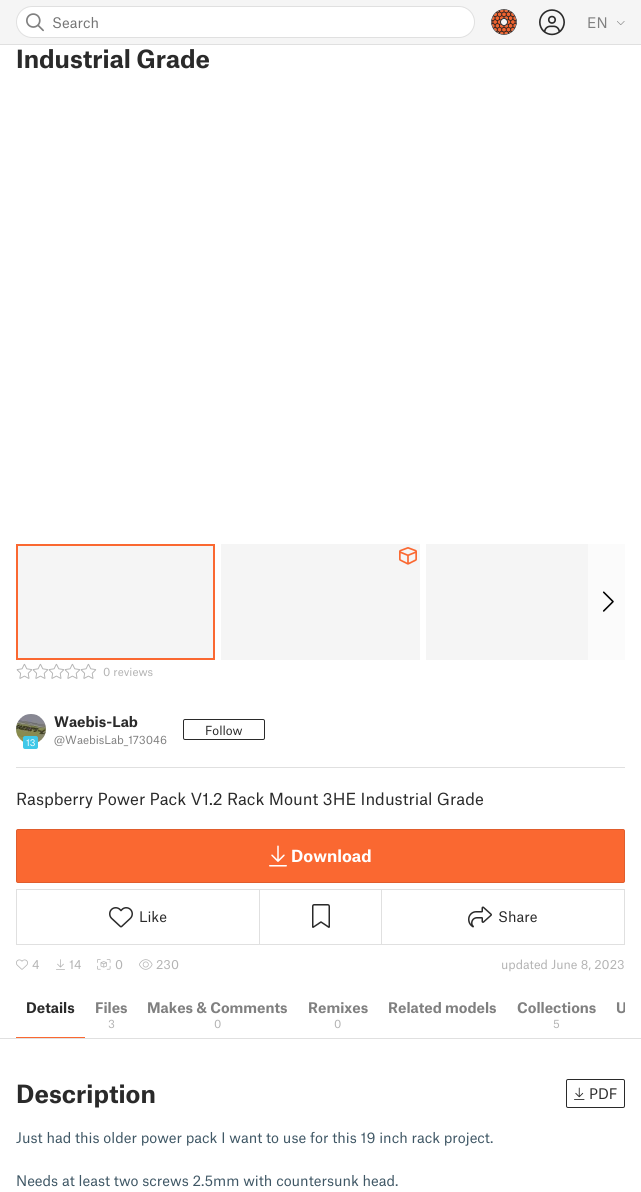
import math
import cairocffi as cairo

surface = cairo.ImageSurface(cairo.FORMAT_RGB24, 641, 1192)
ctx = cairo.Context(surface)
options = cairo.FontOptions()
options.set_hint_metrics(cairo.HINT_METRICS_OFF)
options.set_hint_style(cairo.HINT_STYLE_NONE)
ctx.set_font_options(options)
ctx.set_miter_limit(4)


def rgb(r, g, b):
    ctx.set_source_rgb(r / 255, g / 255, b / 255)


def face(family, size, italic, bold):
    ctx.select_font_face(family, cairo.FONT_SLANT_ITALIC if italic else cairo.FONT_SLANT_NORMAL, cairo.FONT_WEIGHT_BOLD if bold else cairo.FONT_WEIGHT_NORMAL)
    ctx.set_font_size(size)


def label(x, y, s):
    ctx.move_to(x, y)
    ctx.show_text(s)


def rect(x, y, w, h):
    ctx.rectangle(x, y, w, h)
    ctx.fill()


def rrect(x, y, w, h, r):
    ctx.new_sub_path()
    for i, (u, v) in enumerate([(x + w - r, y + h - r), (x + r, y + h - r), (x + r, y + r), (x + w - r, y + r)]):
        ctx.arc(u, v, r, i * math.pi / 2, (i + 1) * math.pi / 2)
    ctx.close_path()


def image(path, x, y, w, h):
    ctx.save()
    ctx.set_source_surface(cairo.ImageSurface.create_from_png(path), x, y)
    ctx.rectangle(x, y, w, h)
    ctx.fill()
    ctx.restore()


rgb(255, 255, 255)
ctx.paint()
rgb(245, 245, 245)
rect(0, 0, 641, 44)
rgb(255, 255, 255)
rrect(16.5, 6.5, 458, 31, 15.5)
ctx.fill_preserve()
rgb(224, 224, 224)
ctx.set_line_width(1)
ctx.stroke()
image('image0.png', 26, 13, 18, 19)
face('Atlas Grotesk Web', 14, 0, 0)
rgb(117, 117, 117)
label(52, 28, 'Search')
image('image1.png', 491, 9, 26, 26)
image('image2.png', 539, 9, 26, 27)
rgb(128, 128, 128)
label(587, 28, 'EN')
image('image3.png', 617, 21, 8, 4)
rgb(224, 224, 224)
rect(0, 44, 641, 1)
face('Atlas Grotesk Web', 24, 0, 1)
rgb(42, 42, 42)
label(16, 68, 'Industrial Grade')
rgb(245, 245, 245)
ctx.rectangle(17, 545, 197, 114)
ctx.fill_preserve()
rgb(250, 104, 49)
ctx.set_line_width(2)
ctx.stroke()
rgb(245, 245, 245)
rect(221, 544, 199, 116)
image('image4.png', 399, 547, 18, 18)
rect(426, 544, 162, 116)
rgb(251, 251, 251)
rect(588, 544, 37, 116)
image('image5.png', 602, 591, 12, 21)
image('image6.png', 16, 663, 17, 16)
image('image7.png', 32, 663, 17, 16)
image('image7.png', 48, 663, 17, 16)
image('image7.png', 64, 663, 17, 16)
image('image7.png', 80, 663, 17, 16)
face('Atlas Grotesk Web', 11, 0, 0)
rgb(179, 179, 179)
label(103, 676, '0 reviews')
image('image8.png', 16, 714, 30, 28)
rgb(64, 200, 232)
rrect(23, 736, 15, 13, 2)
ctx.fill()
face('Atlas Grotesk Web', 9, 0, 0)
rgb(255, 255, 255)
label(26, 746, '13')
face('Atlas Grotesk Web', 14, 0, 1)
rgb(42, 42, 42)
label(54, 727, 'Waebis-Lab')
face('Atlas Grotesk Web', 11, 0, 0)
rgb(128, 128, 128)
label(54, 744, '@WaebisLab_173046')
rrect(183.5, 719.5, 81, 20, 1.5)
rgb(42, 42, 42)
ctx.set_line_width(1)
ctx.stroke()
face('Atlas Grotesk Web', 12, 0, 0)
label(205, 735, 'Follow')
rgb(224, 224, 224)
rect(16, 767, 609, 1)
face('Atlas Grotesk Web', 16, 0, 0)
rgb(42, 42, 42)
label(16, 805, 'Raspberry Power Pack V1.2 Rack Mount 3HE Industrial Grade')
rgb(250, 104, 49)
rrect(16.5, 829.5, 608, 53, 1.5)
ctx.fill_preserve()
rgb(224, 93, 45)
ctx.stroke()
image('image9.png', 269, 845, 18, 22)
face('Atlas Grotesk Web', 16, 0, 1)
rgb(255, 255, 255)
label(291, 862, 'Download')
ctx.rectangle(16.5, 889.5, 608, 55)
rgb(224, 224, 224)
ctx.stroke()
image('image10.png', 109, 907, 24, 21)
face('Atlas Grotesk Web', 14, 0, 0)
rgb(42, 42, 42)
label(139, 922, 'Like')
rgb(224, 224, 224)
rect(259, 890, 1, 54)
image('image11.png', 312, 904, 18, 24)
rect(381, 890, 1, 54)
image('image12.png', 468, 906, 24, 22)
rgb(42, 42, 42)
label(498, 922, 'Share')
image('image13.png', 16, 959, 12, 11)
face('Atlas Grotesk Web', 12, 0, 0)
rgb(179, 179, 179)
label(32, 969, '4')
image('image14.png', 56, 959, 9, 11)
label(69, 969, '14')
image('image15.png', 97, 959, 14, 11)
label(115, 969, '0')
image('image16.png', 139, 959, 14, 11)
label(156, 969, '230')
label(501, 969, 'updated June 8, 2023')
rgb(224, 224, 224)
rect(0, 1038, 641, 1)
rgb(250, 104, 49)
rect(16, 1037, 69, 1)
face('Atlas Grotesk Web', 14, 0, 1)
rgb(42, 42, 42)
label(26, 1013, 'Details')
rgb(128, 128, 128)
label(95, 1013, 'Files')
face('Atlas Grotesk Web', 11, 0, 0)
rgb(179, 179, 179)
label(108, 1028, '3')
face('Atlas Grotesk Web', 14, 0, 1)
rgb(128, 128, 128)
label(147, 1013, 'Makes & Comments')
face('Atlas Grotesk Web', 11, 0, 0)
rgb(179, 179, 179)
label(214, 1028, '0')
face('Atlas Grotesk Web', 14, 0, 1)
rgb(128, 128, 128)
label(308, 1013, 'Remixes')
face('Atlas Grotesk Web', 11, 0, 0)
rgb(179, 179, 179)
label(334, 1028, '0')
face('Atlas Grotesk Web', 14, 0, 1)
rgb(128, 128, 128)
label(388, 1013, 'Related models')
label(517, 1013, 'Collections')
face('Atlas Grotesk Web', 11, 0, 0)
rgb(179, 179, 179)
label(553, 1028, '5')
ctx.save()
ctx.rectangle(16, 988, 609, 50)
ctx.clip()
face('Atlas Grotesk Web', 14, 0, 1)
rgb(128, 128, 128)
label(616, 1013, 'U')
ctx.restore()
face('Atlas Grotesk Web', 24, 0, 1)
rgb(42, 42, 42)
label(16, 1103, 'Description')
rrect(566.5, 1079.5, 58, 28, 1.5)
ctx.stroke()
image('image17.png', 574, 1087, 11, 13)
face('Atlas Grotesk Web', 14, 0, 0)
label(589, 1099, 'PDF')
rgb(63, 87, 101)
label(16, 1143, 'Just had this older power pack I want to use for this 19 inch rack project.')
label(16, 1186, 'Needs at least two screws 2.5mm with countersunk head.')
surface.write_to_png('render.png')
